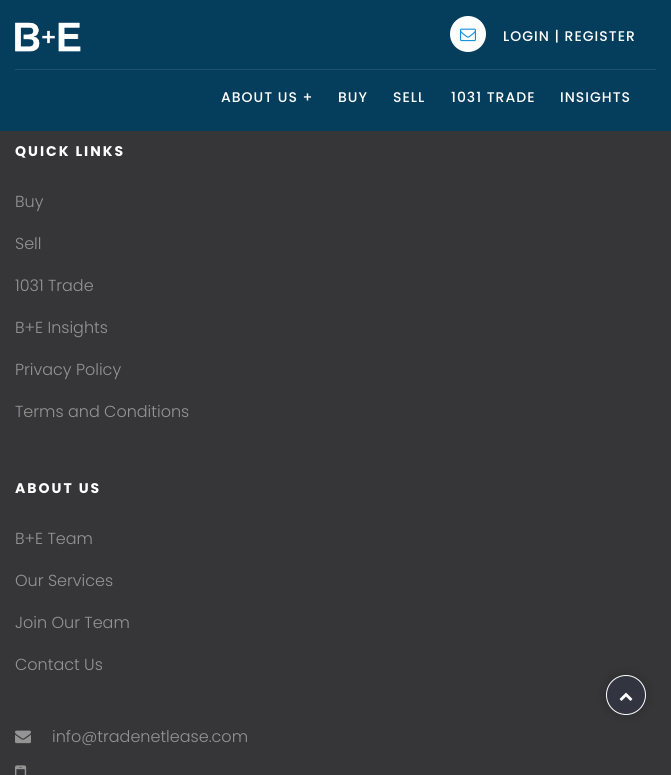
import math
import cairocffi as cairo

surface = cairo.ImageSurface(cairo.FORMAT_RGB24, 671, 775)
ctx = cairo.Context(surface)
options = cairo.FontOptions()
options.set_hint_metrics(cairo.HINT_METRICS_OFF)
options.set_hint_style(cairo.HINT_STYLE_NONE)
ctx.set_font_options(options)
ctx.set_miter_limit(4)


def rgb(r, g, b):
    ctx.set_source_rgb(r / 255, g / 255, b / 255)


def face(family, size, italic, bold):
    ctx.select_font_face(family, cairo.FONT_SLANT_ITALIC if italic else cairo.FONT_SLANT_NORMAL, cairo.FONT_WEIGHT_BOLD if bold else cairo.FONT_WEIGHT_NORMAL)
    ctx.set_font_size(size)


def label(x, y, s):
    ctx.move_to(x, y)
    ctx.show_text(s)


def tracked(x, y, s, letter, word):
    ctx.move_to(x, y)
    for ch in s:
        ctx.show_text(ch)
        ctx.rel_move_to(letter + word * (ch == ' '), 0)


def rect(x, y, w, h):
    ctx.rectangle(x, y, w, h)
    ctx.fill()


def rrect(x, y, w, h, r):
    ctx.new_sub_path()
    for i, (u, v) in enumerate([(x + w - r, y + h - r), (x + r, y + h - r), (x + r, y + r), (x + w - r, y + r)]):
        ctx.arc(u, v, r, i * math.pi / 2, (i + 1) * math.pi / 2)
    ctx.close_path()


def soft_shadow(x, y, w, h, r, blur, alpha):
    ctx.push_group_with_content(cairo.CONTENT_ALPHA)
    ctx.set_operator(cairo.OPERATOR_SOURCE)
    for i in range(15, -16, -2):
        e = blur * i / 6
        if min(w, h) + 2 * e > 0:
            ctx.set_source_rgba(0, 0, 0, alpha * math.erfc((i - 1) / 8.5) / 2)
            rrect(x - e, y - e, w + 2 * e, h + 2 * e, max(0, min(r + e + blur * .6, min(w, h) / 2 + e)))
            ctx.fill()
    ctx.mask(ctx.pop_group())


def image(path, x, y, w, h):
    ctx.save()
    ctx.set_source_surface(cairo.ImageSurface.create_from_png(path), x, y)
    ctx.rectangle(x, y, w, h)
    ctx.fill()
    ctx.restore()


rgb(54, 54, 56)
ctx.paint()
rgb(5, 61, 93)
rect(0, 0, 671, 131)
image('image0.png', 15, 22, 66, 30)
face('Poppins Medium', 14, 0, 0)
rgb(255, 255, 255)
tracked(503, 41, 'LOGIN | REGISTER', 1, 0)
rgb(30, 80, 109)
rect(15, 69, 641, 1)
rgb(255, 255, 255)
ctx.new_path()
ctx.arc(468, 34, 18, 0, 2 * math.pi)
ctx.fill()
image('image1.png', 460, 28, 16, 14)
tracked(221, 102, 'ABOUT US +', 1, 0)
tracked(338, 102, 'BUY', 1, 0)
tracked(393, 102, 'SELL', 1, 0)
tracked(451, 102, '1031 TRADE', 1, 0)
tracked(560, 102, 'INSIGHTS', 1, 0)
face('Poppins', 14, 0, 1)
tracked(15, 156, 'QUICK LINKS', 2, 0)
face('Poppins Light', 16, 0, 0)
rgb(148, 148, 148)
label(15, 207, 'Buy')
label(15, 249, 'Sell')
label(15, 291, '1031 Trade')
label(15, 333, 'B+E Insights')
label(15, 375, 'Privacy Policy')
label(15, 417, 'Terms and Conditions')
face('Poppins', 14, 0, 1)
rgb(255, 255, 255)
tracked(15, 493, 'ABOUT US', 2, 0)
face('Poppins Light', 16, 0, 0)
rgb(148, 148, 148)
label(15, 544, 'B+E Team')
label(15, 586, 'Our Services')
label(15, 628, 'Join Our Team')
label(15, 670, 'Contact Us')
image('image2.png', 15, 730, 16, 14)
label(52, 742, 'info@tradenetlease.com')
image('image3.png', 15, 765, 12, 10)
rgb(0, 0, 0)
soft_shadow(606, 675, 40, 40, 20, 6, 0.2)
rgb(50, 52, 64)
ctx.arc(626, 695, 19.5, 0, 2 * math.pi)
ctx.fill_preserve()
rgb(255, 255, 255)
ctx.set_line_width(1)
ctx.stroke()
image('image4.png', 619, 692, 14, 9)
surface.write_to_png('render.png')
